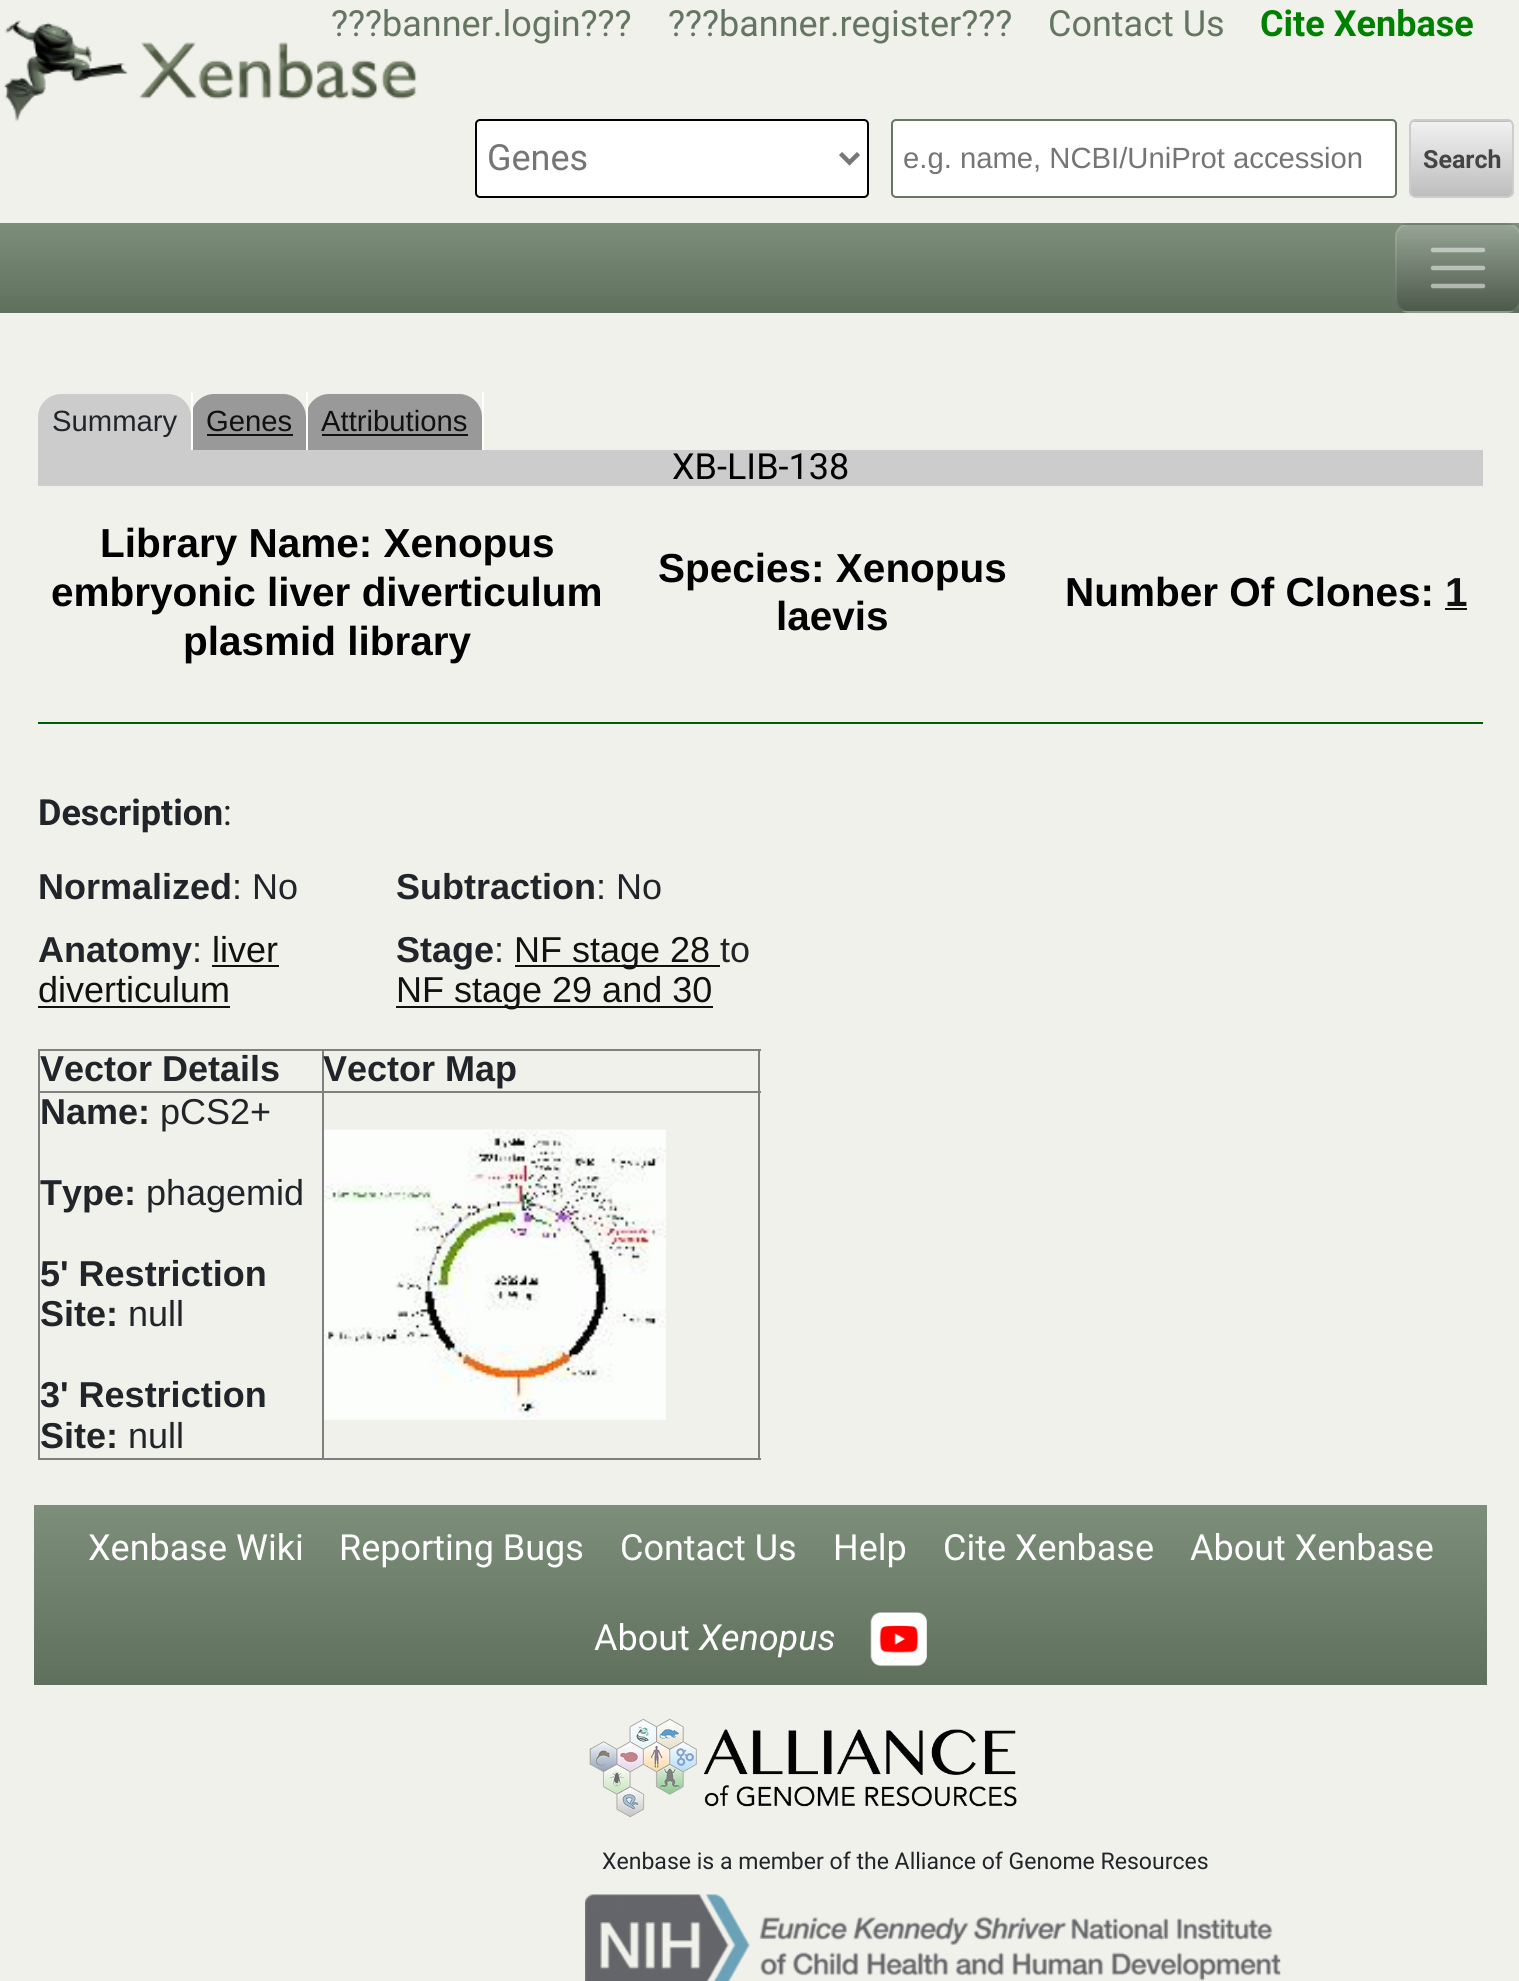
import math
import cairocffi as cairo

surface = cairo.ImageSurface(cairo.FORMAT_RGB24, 1519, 1981)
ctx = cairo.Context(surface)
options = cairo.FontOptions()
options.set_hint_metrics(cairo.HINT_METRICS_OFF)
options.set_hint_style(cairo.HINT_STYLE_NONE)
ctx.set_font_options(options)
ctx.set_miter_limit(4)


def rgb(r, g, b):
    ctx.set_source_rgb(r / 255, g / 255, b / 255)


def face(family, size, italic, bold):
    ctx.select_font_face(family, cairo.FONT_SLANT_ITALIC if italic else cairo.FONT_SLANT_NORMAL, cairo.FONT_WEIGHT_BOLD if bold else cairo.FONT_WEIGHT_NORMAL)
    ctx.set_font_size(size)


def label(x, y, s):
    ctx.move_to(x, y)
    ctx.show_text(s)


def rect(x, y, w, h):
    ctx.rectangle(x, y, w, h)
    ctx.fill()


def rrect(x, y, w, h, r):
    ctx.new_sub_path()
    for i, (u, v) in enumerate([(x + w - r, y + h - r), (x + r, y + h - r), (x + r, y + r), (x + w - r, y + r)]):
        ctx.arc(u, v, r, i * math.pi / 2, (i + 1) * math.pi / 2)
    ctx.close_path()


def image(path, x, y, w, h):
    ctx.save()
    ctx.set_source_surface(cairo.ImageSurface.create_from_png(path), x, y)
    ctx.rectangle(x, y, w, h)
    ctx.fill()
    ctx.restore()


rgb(240, 241, 234)
ctx.paint()
face('Roboto', 36, 0, 0)
rgb(100, 117, 98)
label(331, 36, '???banner.login???')
image('image0.png', 3, 20, 414, 102)
label(668, 36, '???banner.register???')
label(1048, 36, 'Contact Us')
face('Roboto', 36, 0, 1)
rgb(0, 128, 0)
label(1260, 36, 'Cite Xenbase')
rgb(255, 255, 255)
rrect(476, 120, 392, 77, 4)
ctx.fill_preserve()
rgb(0, 0, 0)
ctx.stroke()
ctx.new_path()
ctx.move_to(840.5, 153.5)
ctx.line_to(849.5, 162.5)
ctx.line_to(858.5, 153.5)
rgb(119, 119, 119)
ctx.set_line_width(4.5)
ctx.stroke()
face('Roboto', 36, 0, 0)
rgb(117, 117, 117)
label(487, 170, 'Genes')
rgb(255, 255, 255)
rrect(892, 120, 504, 77, 4)
ctx.fill_preserve()
rgb(102, 119, 100)
ctx.set_line_width(2)
ctx.stroke()
face('Liberation Sans', 29.25, 0, 0)
rgb(117, 117, 117)
label(903, 168, 'e.g. name, NCBI/UniProt accession')
ctx.save()
rrect(1409, 119, 105, 79, 7)
ctx.clip()
gradient = cairo.LinearGradient(1461, 47, 1461, 122)
gradient.add_color_stop_rgba(0, 0.945, 0.945, 0.945, 1)
gradient.add_color_stop_rgba(1, 0.745, 0.745, 0.745, 1)
ctx.set_source(gradient)
rect(1409, 119, 105, 3)
gradient = cairo.LinearGradient(1461, 122, 1461, 196)
gradient.add_color_stop_rgba(0, 0.945, 0.945, 0.945, 1)
gradient.add_color_stop_rgba(1, 0.745, 0.745, 0.745, 1)
ctx.set_source(gradient)
rect(1409, 122, 105, 74)
ctx.restore()
rrect(1410, 120, 103, 77, 6)
rgb(204, 204, 204)
ctx.stroke()
face('Roboto', 25, 0, 1)
rgb(68, 68, 68)
label(1423, 168, 'Search')
gradient = cairo.LinearGradient(761, 223, 761, 313)
gradient.add_color_stop_rgba(0, 0.49, 0.557, 0.482, 1)
gradient.add_color_stop_rgba(1, 0.373, 0.439, 0.365, 1)
ctx.set_source(gradient)
rect(0, 223, 1519, 90)
ctx.save()
rrect(1395, 223, 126, 90, 14)
ctx.clip()
gradient = cairo.LinearGradient(1458, 140, 1458, 225)
gradient.add_color_stop_rgba(0, 0.592, 0.647, 0.584, 1)
gradient.add_color_stop_rgba(1, 0.392, 0.447, 0.384, 1)
ctx.set_source(gradient)
rect(1395, 223, 124, 2)
gradient = cairo.LinearGradient(1458, 225, 1458, 311)
gradient.add_color_stop_rgba(0, 1, 1, 1, 0.2)
gradient.add_color_stop_rgba(1, 0, 0, 0, 0.2)
ctx.set_source(gradient)
rect(1395, 225, 124, 86)
gradient = cairo.LinearGradient(1458, 311, 1458, 396)
gradient.add_color_stop_rgba(0, 0.498, 0.553, 0.494, 1)
gradient.add_color_stop_rgba(1, 0.298, 0.353, 0.294, 1)
ctx.set_source(gradient)
rect(1395, 311, 124, 2)
ctx.restore()
rrect(1396, 224, 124, 88, 13)
ctx.set_source_rgba(1, 1, 1, 0.1)
ctx.stroke()
ctx.new_path()
ctx.move_to(1433, 250)
ctx.line_to(1483, 250)
ctx.move_to(1433, 268)
ctx.line_to(1483, 268)
ctx.move_to(1433, 286)
ctx.line_to(1483, 286)
ctx.set_source_rgba(1, 1, 1, 0.5)
ctx.set_line_width(4.5)
ctx.set_line_cap(cairo.LINE_CAP_ROUND)
ctx.stroke()
rgb(204, 204, 204)
ctx.new_path()
ctx.move_to(61, 394)
ctx.line_to(168, 394)
ctx.curve_to(180.5, 394, 191, 404.5, 191, 417)
ctx.line_to(191, 450)
ctx.line_to(38, 450)
ctx.line_to(38, 417)
ctx.curve_to(38, 404.5, 48.5, 394, 61, 394)
ctx.close_path()
ctx.fill()
rgb(153, 153, 153)
ctx.new_path()
ctx.move_to(214, 394)
ctx.line_to(283, 394)
ctx.curve_to(295.5, 394, 306, 404.5, 306, 417)
ctx.line_to(306, 450)
ctx.line_to(191, 450)
ctx.line_to(191, 417)
ctx.curve_to(191, 404.5, 201.5, 394, 214, 394)
ctx.close_path()
ctx.fill()
rgb(255, 255, 255)
rect(191, 392, 2, 58)
face('Liberation Sans', 29.25, 0, 0)
rgb(33, 37, 41)
label(52, 431, 'Summary')
rgb(153, 153, 153)
ctx.new_path()
ctx.move_to(329, 394)
ctx.line_to(459, 394)
ctx.curve_to(471.5, 394, 482, 404.5, 482, 417)
ctx.line_to(482, 450)
ctx.line_to(306, 450)
ctx.line_to(306, 417)
ctx.curve_to(306, 404.5, 316.5, 394, 329, 394)
ctx.close_path()
ctx.fill()
rgb(255, 255, 255)
rect(306, 392, 2, 58)
rgb(17, 17, 17)
label(206, 431, 'Genes')
rect(207, 434, 86, 2)
rgb(255, 255, 255)
rect(482, 392, 2, 58)
rgb(17, 17, 17)
label(321, 431, 'Attributions')
rect(322, 434, 146, 2)
rgb(204, 204, 204)
rect(38, 450, 1445, 36)
face('Roboto', 36, 0, 0)
rgb(0, 0, 0)
label(672, 479, 'XB-LIB-138')
face('Liberation Sans', 40.5, 0, 1)
label(100, 557, 'Library Name: Xenopus')
label(51, 606, 'embryonic liver diverticulum')
label(183, 655, 'plasmid library')
label(658, 582, 'Species: Xenopus')
label(776, 630, 'laevis')
label(1065, 606, 'Number Of Clones:')
rgb(17, 17, 17)
label(1445, 606, '1')
rect(1445, 608, 22, 2)
rgb(0, 92, 0)
rect(38, 722, 1445, 2)
face('Roboto', 36, 0, 1)
rgb(33, 37, 41)
label(38, 825, 'Description')
face('Roboto', 36, 0, 0)
label(223, 825, ':')
face('Liberation Sans', 36, 0, 1)
label(38, 899, 'Normalized')
face('Liberation Sans', 36, 0, 0)
label(232, 899, ': No')
face('Liberation Sans', 36, 0, 1)
label(396, 899, 'Subtraction')
face('Liberation Sans', 36, 0, 0)
label(596, 899, ': No')
face('Liberation Sans', 36, 0, 1)
label(38, 962, 'Anatomy')
face('Liberation Sans', 36, 0, 0)
label(192, 962, ':')
rgb(17, 17, 17)
label(212, 962, 'liver')
rect(212, 965, 67, 2)
label(38, 1002, 'diverticulum')
rect(38, 1006, 192, 2)
face('Liberation Sans', 36, 0, 1)
rgb(33, 37, 41)
label(396, 962, 'Stage')
face('Liberation Sans', 36, 0, 0)
label(494, 962, ':')
rgb(17, 17, 17)
rect(515, 965, 205, 2)
label(514, 962, 'NF stage 28')
rgb(33, 37, 41)
label(720, 962, 'to')
rgb(17, 17, 17)
rect(396, 1006, 317, 2)
label(396, 1002, 'NF stage 29 and 30')
rgb(128, 128, 128)
rect(38, 1049, 723, 2)
rect(758, 1049, 2, 411)
rect(38, 1458, 723, 2)
rect(38, 1049, 2, 411)
face('Liberation Sans', 36, 0, 1)
rgb(33, 37, 41)
label(40, 1081, 'Vector Details')
rgb(128, 128, 128)
rect(322, 1091, 439, 2)
rect(322, 1091, 2, 369)
rect(38, 1091, 286, 2)
rect(322, 1049, 2, 45)
rgb(33, 37, 41)
label(323, 1081, 'Vector Map')
label(40, 1124, 'Name:')
face('Liberation Sans', 36, 0, 0)
label(160, 1124, 'pCS2+')
face('Liberation Sans', 36, 0, 1)
label(40, 1205, 'Type:')
face('Liberation Sans', 36, 0, 0)
label(146, 1205, 'phagemid')
face('Liberation Sans', 36, 0, 1)
label(40, 1286, '5\' Restriction')
label(40, 1326, 'Site:')
face('Liberation Sans', 36, 0, 0)
label(128, 1326, 'null')
face('Liberation Sans', 36, 0, 1)
label(40, 1407, '3\' Restriction')
label(40, 1448, 'Site:')
face('Liberation Sans', 36, 0, 0)
label(128, 1448, 'null')
image('image1.png', 324, 1129, 342, 291)
gradient = cairo.LinearGradient(761, 1505, 761, 1685)
gradient.add_color_stop_rgba(0, 0.49, 0.557, 0.482, 1)
gradient.add_color_stop_rgba(1, 0.373, 0.439, 0.365, 1)
ctx.set_source(gradient)
rect(34, 1505, 1453, 180)
face('Roboto', 36, 0, 0)
rgb(255, 255, 255)
label(88, 1560, 'Xenbase Wiki')
label(339, 1560, 'Reporting Bugs')
label(620, 1560, 'Contact Us')
label(833, 1560, 'Help')
label(943, 1560, 'Cite Xenbase')
label(1190, 1560, 'About Xenbase')
label(594, 1650, 'About')
face('Roboto', 36, 1, 0)
label(699, 1650, 'Xenopus')
image('image2.png', 870, 1612, 57, 55)
image('image3.png', 589, 1718, 428, 100)
face('Roboto', 23.05, 0, 0)
rgb(33, 37, 41)
label(602, 1869, 'Xenbase is a member of the Alliance of Genome Resources')
image('image4.png', 585, 1894, 696, 87)
surface.write_to_png('render.png')
